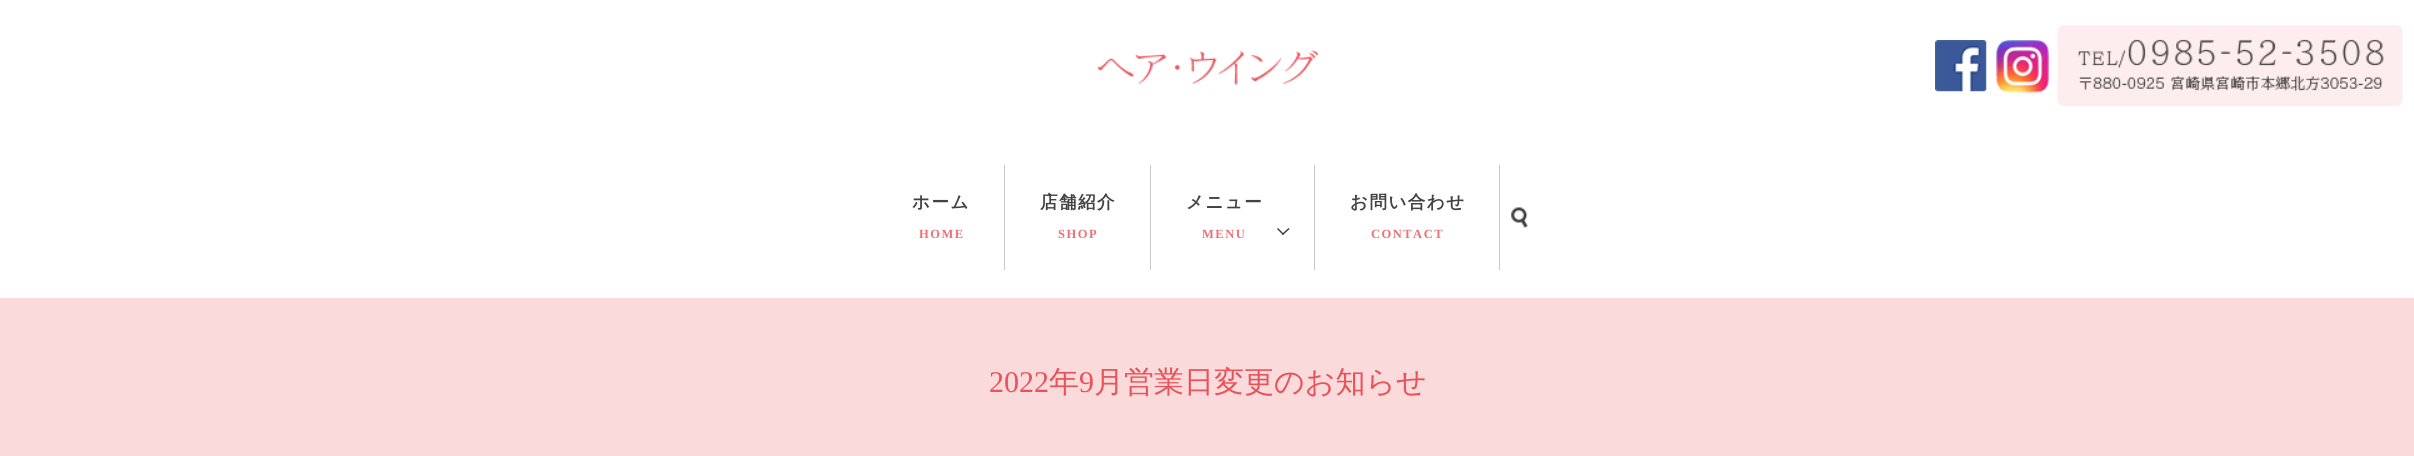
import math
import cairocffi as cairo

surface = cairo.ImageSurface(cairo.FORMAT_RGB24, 2414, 456)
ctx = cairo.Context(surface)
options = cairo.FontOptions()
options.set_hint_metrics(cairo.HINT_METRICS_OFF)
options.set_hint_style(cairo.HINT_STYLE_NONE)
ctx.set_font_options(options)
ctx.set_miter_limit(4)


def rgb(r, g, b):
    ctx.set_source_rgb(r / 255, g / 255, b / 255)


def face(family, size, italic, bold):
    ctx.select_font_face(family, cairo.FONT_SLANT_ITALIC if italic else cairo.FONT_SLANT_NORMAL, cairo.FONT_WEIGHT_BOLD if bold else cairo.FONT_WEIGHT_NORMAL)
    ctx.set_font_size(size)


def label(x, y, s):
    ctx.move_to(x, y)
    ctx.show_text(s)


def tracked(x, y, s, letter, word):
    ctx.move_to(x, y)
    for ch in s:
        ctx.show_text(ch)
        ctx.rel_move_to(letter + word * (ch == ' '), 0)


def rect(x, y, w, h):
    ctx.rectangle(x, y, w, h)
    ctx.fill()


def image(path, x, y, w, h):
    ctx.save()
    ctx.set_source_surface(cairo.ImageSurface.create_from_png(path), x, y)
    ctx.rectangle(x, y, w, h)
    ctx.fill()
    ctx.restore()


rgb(255, 255, 255)
ctx.paint()
image('image0.png', 1097, 50, 222, 35)
image('image1.png', 1935, 40, 52, 52)
image('image2.png', 1996, 40, 53, 53)
image('image3.png', 2057, 25, 346, 81)
face('WenQuanYi Zen Hei', 17.5, 0, 1)
rgb(66, 66, 66)
tracked(912, 208, 'ホーム', 1.5, 0)
face('Liberation Serif', 12.5, 0, 1)
rgb(236, 112, 117)
tracked(919, 238, 'HOME', 1.5, 0)
rgb(201, 201, 201)
rect(1004, 165, 1, 105)
face('WenQuanYi Zen Hei', 17.5, 0, 1)
rgb(66, 66, 66)
tracked(1040, 208, '店舗紹介', 1.5, 0)
face('Liberation Serif', 12.5, 0, 1)
rgb(236, 112, 117)
tracked(1058, 238, 'SHOP', 1.5, 0)
rgb(201, 201, 201)
rect(1150, 165, 1, 105)
face('WenQuanYi Zen Hei', 17.5, 0, 1)
rgb(66, 66, 66)
tracked(1186, 208, 'メニュー', 1.5, 0)
face('Liberation Serif', 12.5, 0, 1)
rgb(236, 112, 117)
tracked(1202, 238, 'MENU', 1.5, 0)
rgb(61, 57, 57)
ctx.new_path()
ctx.move_to(1288.5, 228)
ctx.line_to(1289.5, 229)
ctx.line_to(1283, 235)
ctx.line_to(1282, 234)
ctx.close_path()
ctx.fill()
ctx.new_path()
ctx.move_to(1278, 228)
ctx.line_to(1284, 234)
ctx.line_to(1283, 235)
ctx.line_to(1277, 229)
ctx.close_path()
ctx.fill()
rgb(201, 201, 201)
rect(1314, 165, 1, 105)
face('WenQuanYi Zen Hei', 17.5, 0, 1)
rgb(66, 66, 66)
tracked(1350, 208, 'お問い合わせ', 1.5, 0)
face('Liberation Serif', 12.5, 0, 1)
rgb(236, 112, 117)
tracked(1371, 238, 'CONTACT', 1.5, 0)
rgb(201, 201, 201)
rect(1499, 165, 1, 105)
image('image4.png', 1511, 207, 17, 21)
rgb(250, 218, 219)
rect(0, 298, 2414, 158)
face('Liberation Serif', 30, 0, 0)
rgb(234, 82, 89)
label(989, 392, '2022')
face('WenQuanYi Zen Hei Medium', 30, 0, 0)
label(1049, 392, '年')
face('Liberation Serif', 30, 0, 0)
label(1079, 392, '9')
face('WenQuanYi Zen Hei Medium', 30, 0, 0)
label(1094, 392, '月営業日変更のお知らせ')
surface.write_to_png('render.png')
